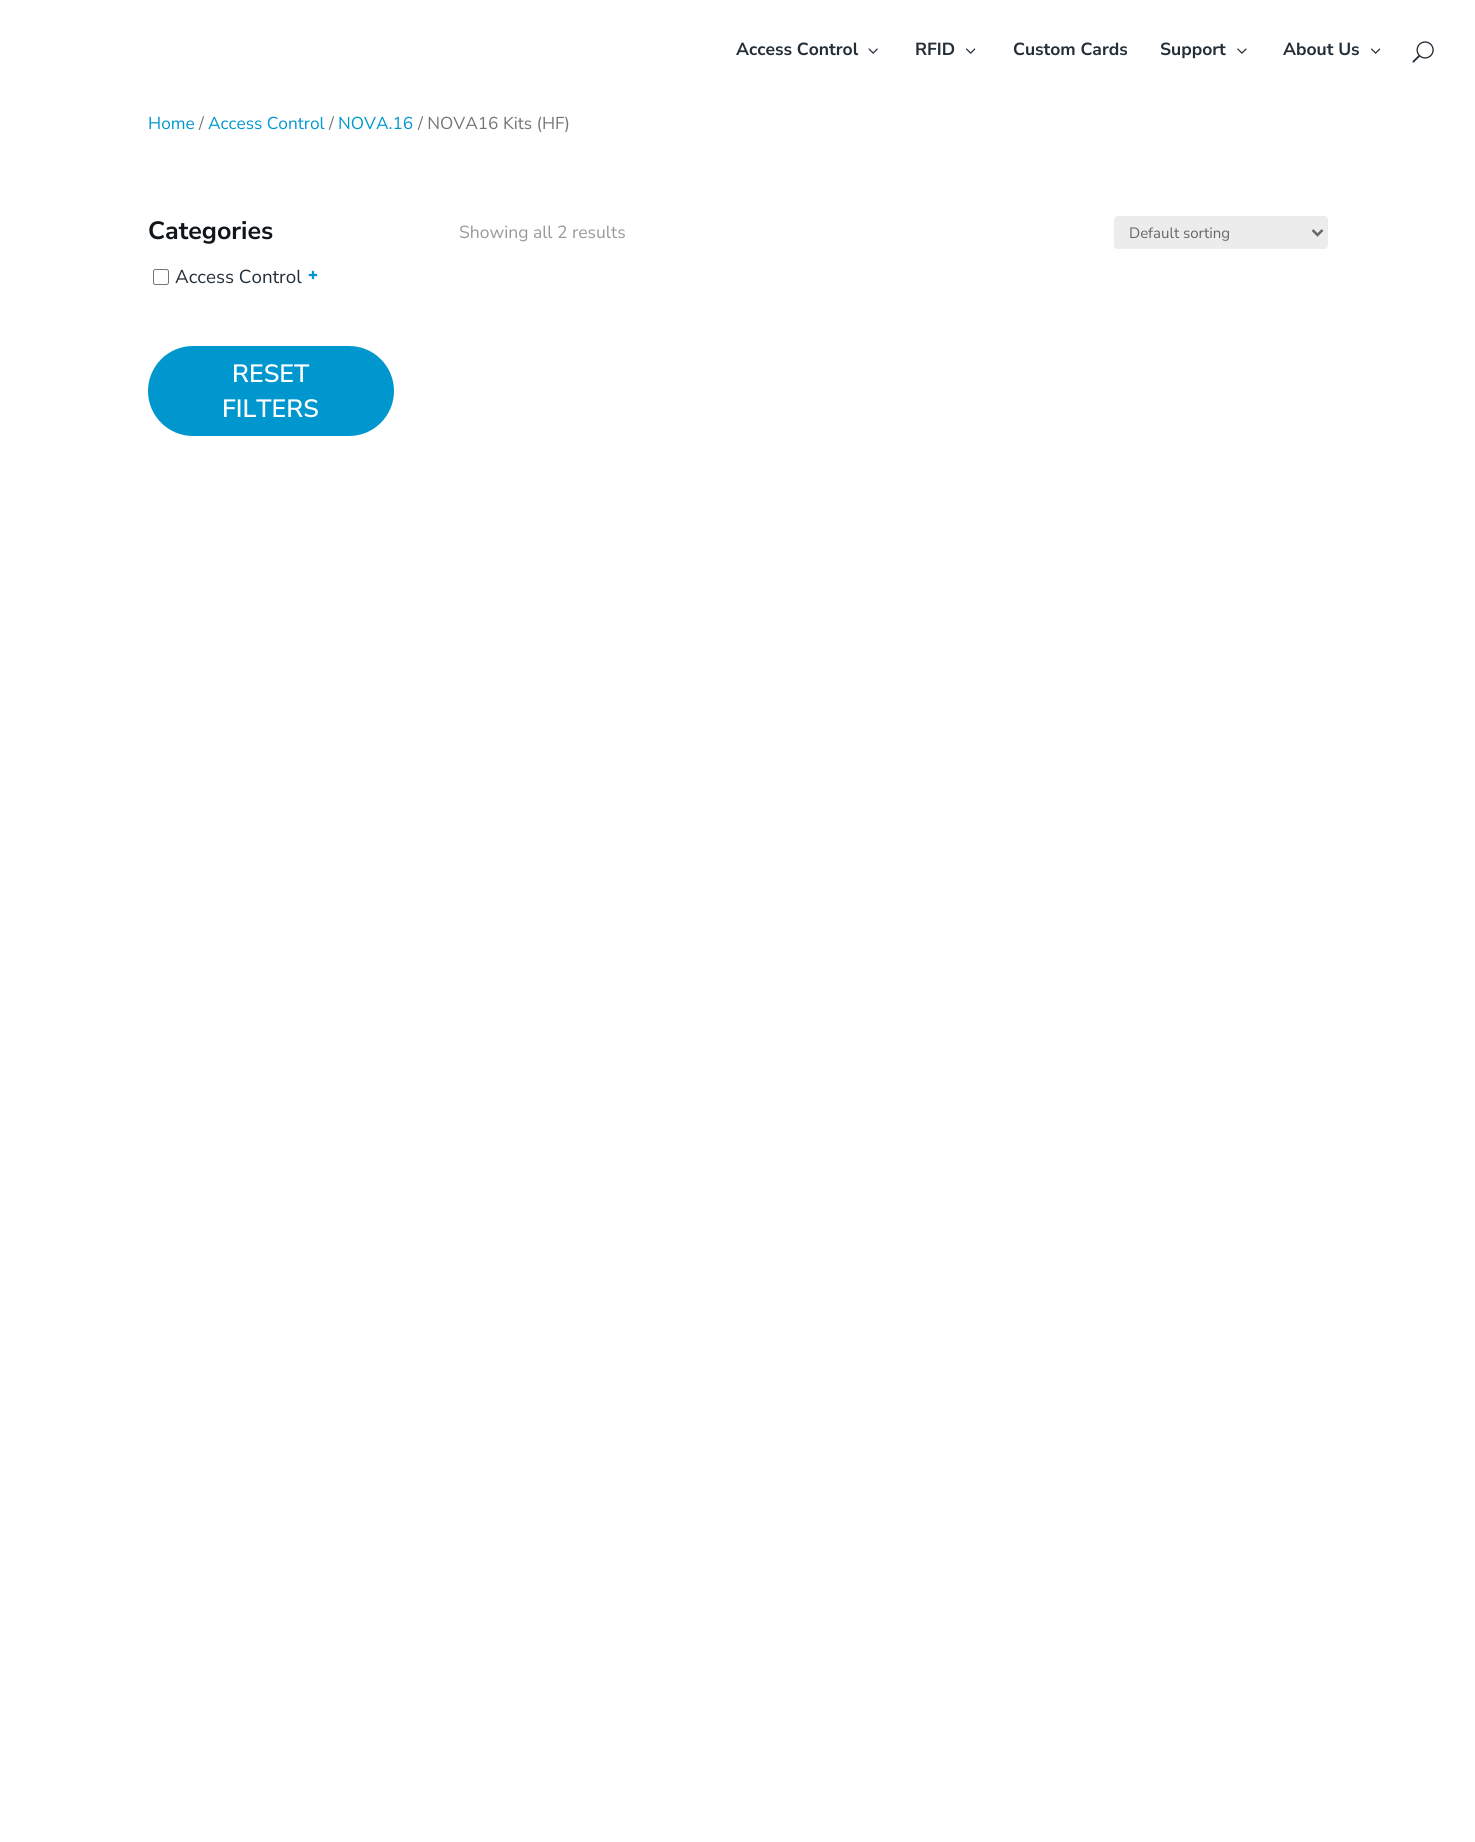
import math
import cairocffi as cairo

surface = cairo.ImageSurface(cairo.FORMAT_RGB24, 1475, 1842)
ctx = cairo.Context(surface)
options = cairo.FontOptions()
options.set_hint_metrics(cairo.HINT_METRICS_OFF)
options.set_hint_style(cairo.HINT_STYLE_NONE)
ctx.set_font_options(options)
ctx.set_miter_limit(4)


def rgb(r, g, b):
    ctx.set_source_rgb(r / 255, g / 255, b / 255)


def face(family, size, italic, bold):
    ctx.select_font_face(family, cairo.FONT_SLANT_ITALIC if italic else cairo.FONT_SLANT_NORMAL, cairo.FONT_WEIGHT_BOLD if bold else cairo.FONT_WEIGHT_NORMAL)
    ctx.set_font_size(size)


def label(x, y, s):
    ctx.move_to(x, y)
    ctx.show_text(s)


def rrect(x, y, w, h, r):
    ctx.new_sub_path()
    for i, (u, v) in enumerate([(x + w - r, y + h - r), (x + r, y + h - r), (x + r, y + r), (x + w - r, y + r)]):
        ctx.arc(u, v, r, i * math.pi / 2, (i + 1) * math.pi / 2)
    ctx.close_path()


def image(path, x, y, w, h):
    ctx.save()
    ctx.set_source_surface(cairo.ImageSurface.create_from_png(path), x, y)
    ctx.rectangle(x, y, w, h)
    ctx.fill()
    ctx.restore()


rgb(255, 255, 255)
ctx.paint()
face('Nunito Sans', 17.5, 0, 1)
rgb(35, 46, 55)
label(736, 55, 'Access Control')
image('image0.png', 868, 48, 10, 6)
label(915, 55, 'RFID')
image('image1.png', 966, 48, 10, 6)
label(1013, 55, 'Custom Cards')
label(1160, 55, 'Support')
image('image2.png', 1237, 48, 10, 6)
label(1283, 55, 'About Us')
image('image1.png', 1371, 48, 10, 6)
image('image3.png', 1412, 41, 22, 22)
face('Nunito Sans', 17.25, 0, 0)
rgb(0, 151, 207)
label(148, 129, 'Home')
rgb(118, 118, 118)
label(199, 129, '/')
rgb(0, 151, 207)
label(208, 129, 'Access Control')
rgb(118, 118, 118)
label(329, 129, '/')
rgb(0, 151, 207)
label(338, 129, 'NOVA.16')
rgb(118, 118, 118)
label(418, 129, '/ NOVA16 Kits (HF)')
face('Nunito Sans', 25, 0, 1)
rgb(16, 21, 25)
label(148, 239, 'Categories')
rrect(153.5, 269.5, 15, 15, 2)
rgb(118, 118, 118)
ctx.set_line_width(1)
ctx.stroke()
face('Nunito Sans', 18.75, 0, 0)
rgb(35, 46, 55)
label(175, 283, 'Access Control')
face('Noto Sans Black', 17, 0, 0)
rgb(0, 151, 207)
label(308, 281, '+')
rrect(148, 346, 246, 90, 45)
ctx.fill()
face('Nunito Sans SemiBold', 25, 0, 0)
rgb(255, 255, 255)
label(232, 382, 'RESET')
label(222, 417, 'FILTERS')
face('Nunito Sans', 17.5, 0, 0)
rgb(153, 153, 153)
label(459, 238, 'Showing all 2 results')
rgb(236, 236, 236)
rrect(1114, 216, 214, 33, 4)
ctx.fill()
ctx.new_path()
ctx.move_to(1312.5, 230)
ctx.line_to(1317.5, 235)
ctx.line_to(1322.5, 230)
rgb(102, 102, 102)
ctx.set_line_width(2.5)
ctx.stroke()
face('Nunito Sans', 15, 0, 0)
label(1129, 238, 'Default sorting')
surface.write_to_png('render.png')
